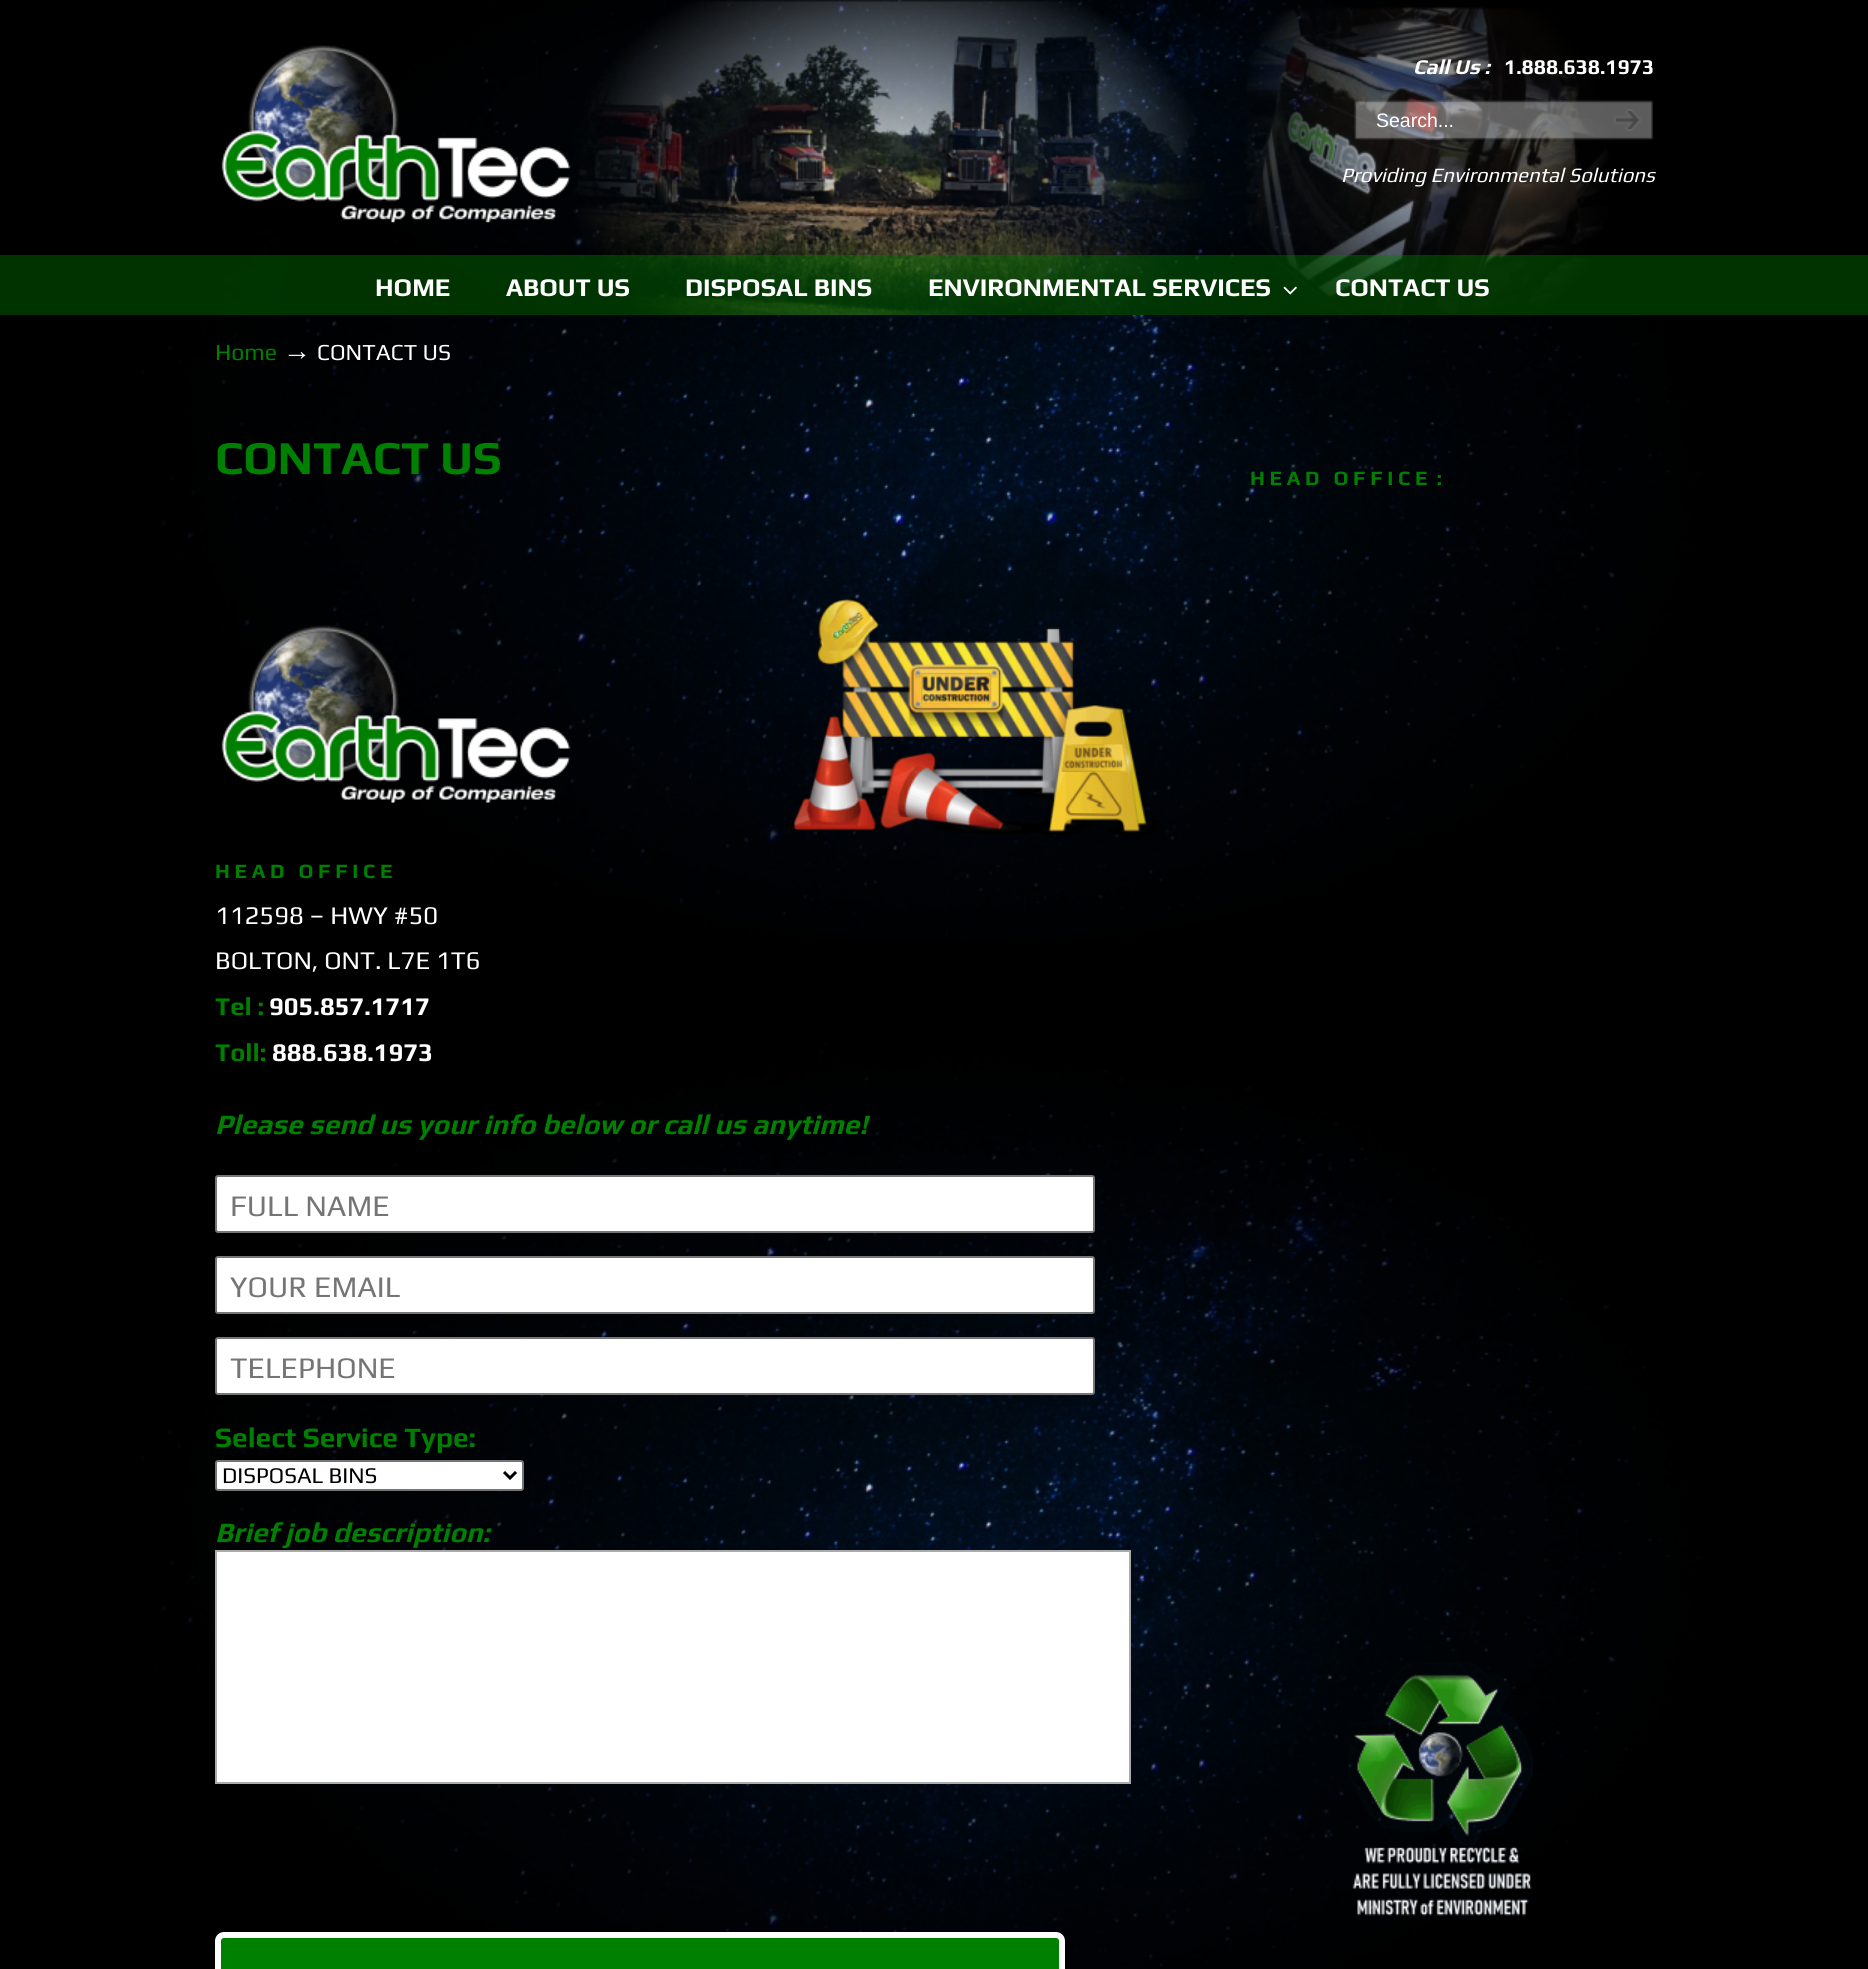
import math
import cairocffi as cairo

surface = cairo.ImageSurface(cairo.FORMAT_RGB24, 1868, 1969)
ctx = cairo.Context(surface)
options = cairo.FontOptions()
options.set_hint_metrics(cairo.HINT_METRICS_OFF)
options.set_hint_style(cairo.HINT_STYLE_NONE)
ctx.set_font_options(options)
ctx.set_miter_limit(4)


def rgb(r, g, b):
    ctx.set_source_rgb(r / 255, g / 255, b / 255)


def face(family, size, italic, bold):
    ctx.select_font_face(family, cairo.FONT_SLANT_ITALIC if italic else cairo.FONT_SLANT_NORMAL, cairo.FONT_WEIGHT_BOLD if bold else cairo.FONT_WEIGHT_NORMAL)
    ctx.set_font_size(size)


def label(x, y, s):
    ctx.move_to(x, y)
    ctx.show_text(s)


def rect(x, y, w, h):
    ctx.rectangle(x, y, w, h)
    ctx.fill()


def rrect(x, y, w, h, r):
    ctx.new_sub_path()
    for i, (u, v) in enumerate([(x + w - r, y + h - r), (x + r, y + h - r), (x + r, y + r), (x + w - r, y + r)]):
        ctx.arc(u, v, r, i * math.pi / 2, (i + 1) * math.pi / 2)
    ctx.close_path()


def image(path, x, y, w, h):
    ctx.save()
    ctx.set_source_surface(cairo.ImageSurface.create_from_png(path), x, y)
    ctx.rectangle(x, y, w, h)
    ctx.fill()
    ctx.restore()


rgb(0, 0, 0)
ctx.paint()
image('image0.png', 141, 0, 1560, 1969)
image('image1.png', 281, 0, 1365, 315)
image('image2.png', 221, 45, 350, 178)
face('Play', 21, 1, 1)
rgb(255, 255, 255)
label(1413, 74, 'Call Us :')
face('Play', 21, 0, 1)
label(1504, 74, '1.888.638.1973')
image('image3.png', 1354, 100, 239, 40)
face('Liberation Sans', 19.5, 0, 0)
label(1376, 127, 'Search...')
image('image4.png', 1593, 100, 60, 40)
face('Play', 20.4, 1, 0)
label(1341, 182, 'Providing Environmental Solutions')
ctx.set_source_rgba(0, 0.502, 0.004, 0.4)
rect(0, 255, 1868, 60)
face('Play', 25.5, 0, 1)
rgb(255, 255, 255)
label(375, 296, 'HOME')
label(506, 296, 'ABOUT US')
label(685, 296, 'DISPOSAL BINS')
label(928, 296, 'ENVIRONMENTAL SERVICES')
image('image5.png', 1283, 286, 14, 9)
label(1335, 296, 'CONTACT US')
face('Play', 23, 0, 0)
rgb(0, 128, 1)
label(215, 360, 'Home')
face('Liberation Serif', 28, 0, 0)
rgb(255, 255, 255)
label(283, 360, '→')
face('Play', 23, 0, 0)
label(317, 360, 'CONTACT US')
face('Play', 47.25, 0, 1)
rgb(0, 128, 1)
label(215, 474, 'CONTACT US')
image('image6.png', 788, 598, 371, 238)
image('image7.png', 221, 625, 350, 178)
face('Play', 20.4, 0, 1)
label(215, 878, 'H E A D   O F F I C E')
face('Play', 25.5, 0, 0)
rgb(255, 255, 255)
label(215, 924, '112598 – HWY #50')
label(215, 969, 'BOLTON, ONT. L7E 1T6')
face('Play', 25.5, 0, 1)
rgb(0, 128, 1)
label(215, 1015, 'Tel :')
rgb(255, 255, 255)
label(269, 1015, '905.857.1717')
rgb(0, 128, 1)
label(215, 1061, 'Toll:')
rgb(255, 255, 255)
label(272, 1061, '888.638.1973')
face('Play', 28.05, 1, 1)
rgb(0, 128, 1)
label(215, 1134, 'Please send us your info below or call us anytime!')
rgb(255, 255, 255)
rrect(216, 1176, 878, 56, 2)
ctx.fill_preserve()
rgb(118, 118, 118)
ctx.stroke()
face('Play', 30, 0, 0)
rgb(117, 117, 117)
label(230, 1216, 'FULL NAME')
rgb(255, 255, 255)
rrect(216, 1257, 878, 56, 2)
ctx.fill_preserve()
rgb(118, 118, 118)
ctx.stroke()
rgb(117, 117, 117)
label(230, 1297, 'YOUR EMAIL')
rgb(255, 255, 255)
rrect(216, 1338, 878, 56, 2)
ctx.fill_preserve()
rgb(118, 118, 118)
ctx.stroke()
rgb(117, 117, 117)
label(230, 1378, 'TELEPHONE')
face('Play', 28.05, 0, 1)
rgb(0, 128, 1)
label(215, 1447, 'Select Service Type:')
rgb(255, 255, 255)
rrect(216, 1461, 307, 29, 2)
ctx.fill_preserve()
rgb(118, 118, 118)
ctx.stroke()
ctx.new_path()
ctx.move_to(504, 1472)
ctx.line_to(510, 1478)
ctx.line_to(516, 1472)
rgb(0, 0, 0)
ctx.set_line_width(3)
ctx.stroke()
face('Play', 22.5, 0, 0)
label(222, 1483, 'DISPOSAL BINS')
face('Play', 28.05, 1, 1)
rgb(0, 128, 1)
label(215, 1542, 'Brief job description:')
rgb(255, 255, 255)
ctx.rectangle(216, 1551, 914, 232)
ctx.fill_preserve()
rgb(171, 171, 171)
ctx.set_line_width(2)
ctx.stroke()
rgb(0, 128, 1)
rrect(218, 1935, 844, 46, 6)
ctx.fill_preserve()
rgb(255, 255, 255)
ctx.set_line_width(6)
ctx.stroke()
face('Play', 20.4, 0, 1)
rgb(0, 128, 1)
label(1250, 485, 'H E A D   O F F I C E  :')
image('image8.png', 1348, 1662, 185, 254)
surface.write_to_png('render.png')
